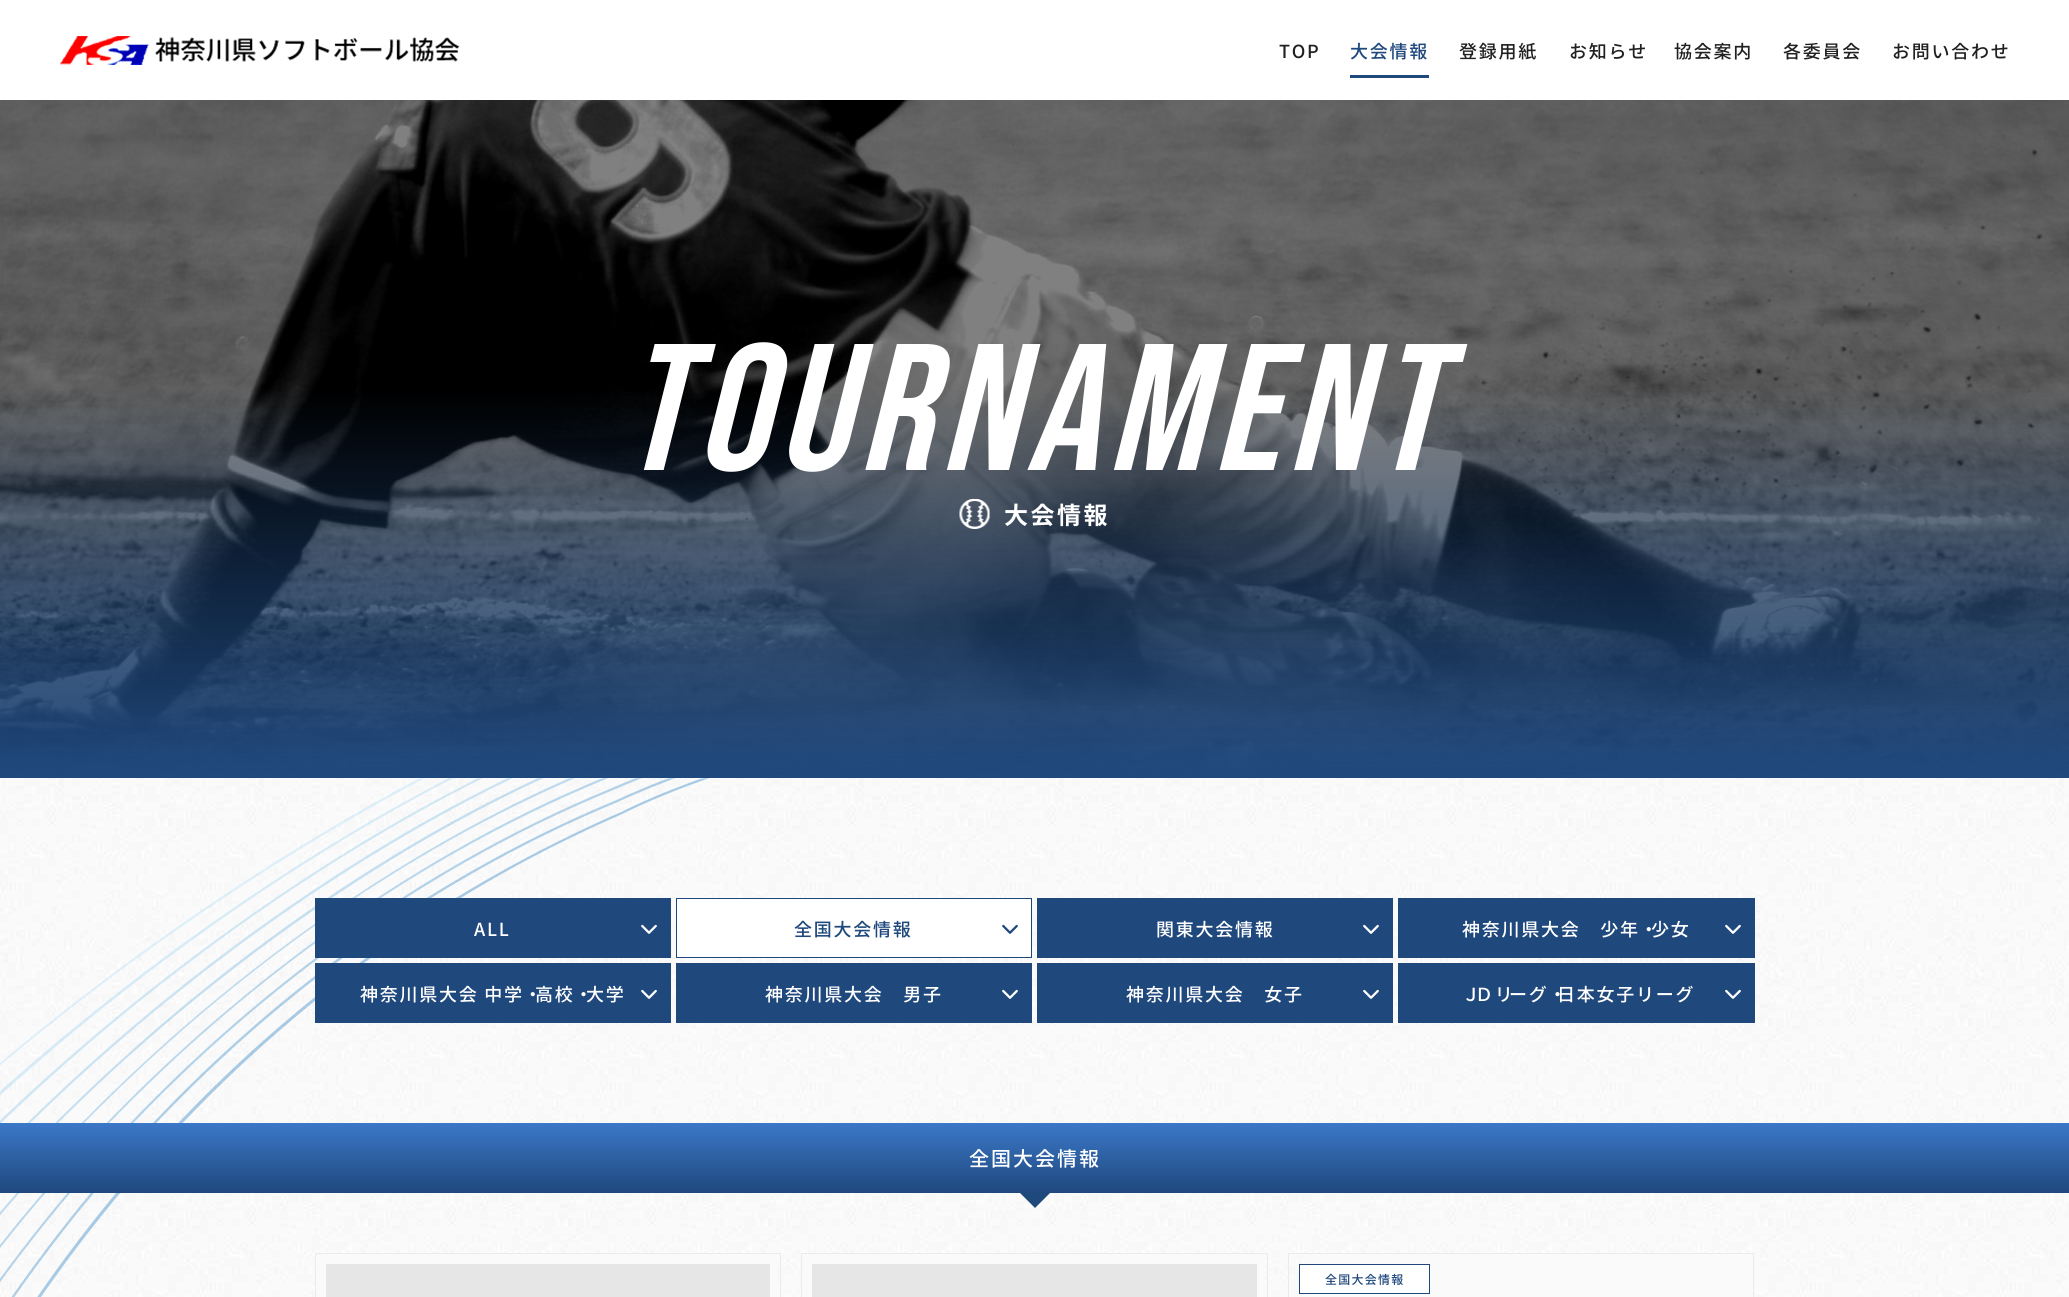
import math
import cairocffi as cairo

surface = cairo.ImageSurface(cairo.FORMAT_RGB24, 2069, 1297)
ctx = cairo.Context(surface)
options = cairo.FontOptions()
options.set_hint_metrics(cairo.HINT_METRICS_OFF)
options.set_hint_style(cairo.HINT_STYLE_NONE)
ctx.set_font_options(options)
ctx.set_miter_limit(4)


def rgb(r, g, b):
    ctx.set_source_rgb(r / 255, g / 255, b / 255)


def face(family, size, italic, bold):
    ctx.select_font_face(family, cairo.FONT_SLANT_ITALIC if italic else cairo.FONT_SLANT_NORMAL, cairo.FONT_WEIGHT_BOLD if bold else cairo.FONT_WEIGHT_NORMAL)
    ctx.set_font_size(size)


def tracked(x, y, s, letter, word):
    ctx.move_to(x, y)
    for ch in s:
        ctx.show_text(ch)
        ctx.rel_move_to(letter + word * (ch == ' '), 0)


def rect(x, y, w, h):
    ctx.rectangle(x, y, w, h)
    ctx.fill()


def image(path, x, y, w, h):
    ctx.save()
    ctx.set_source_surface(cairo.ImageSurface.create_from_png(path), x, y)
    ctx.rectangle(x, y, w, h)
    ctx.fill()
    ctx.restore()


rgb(255, 255, 255)
ctx.paint()
image('image0.png', 60, 36, 400, 29)
face('Noto Sans JP Medium', 18, 0, 0)
rgb(32, 32, 32)
tracked(1279, 58, 'TOP', 1.75, 0)
rgb(31, 72, 125)
tracked(1350, 58, '大会情報', 1.75, 0)
rect(1350, 75, 79, 3)
rgb(32, 32, 32)
tracked(1459, 58, '登録用紙', 1.75, 0)
tracked(1569, 58, 'お知らせ', 1.75, 0)
tracked(1674, 58, '協会案内', 1.75, 0)
tracked(1783, 58, '各委員会', 1.75, 0)
tracked(1892, 58, 'お問い合わせ', 1.75, 0)
image('image1.png', 0, 100, 2069, 678)
face('Bebas Neue', 180, 1, 0)
rgb(255, 255, 255)
tracked(621, 470, 'TOURNAMENT', 9, 0)
image('image2.png', 959, 498, 32, 31)
face('Noto Sans JP', 24, 0, 1)
tracked(1004, 524, '大会情報', 2.5, 0)
image('image3.png', 0, 778, 2069, 519)
image('image4.png', 0, 778, 709, 519)
rgb(31, 72, 125)
rect(315, 898, 356, 60)
face('Noto Sans JP Medium', 18, 0, 0)
rgb(255, 255, 255)
tracked(474, 936, 'ALL', 1.75, 0)
image('image5.png', 641, 924, 16, 10)
ctx.rectangle(676.5, 898.5, 355, 59)
ctx.fill_preserve()
rgb(31, 72, 125)
ctx.set_line_width(1)
ctx.stroke()
tracked(794, 936, '全国大会情報', 1.75, 0)
image('image6.png', 1002, 924, 16, 10)
rect(1037, 898, 356, 60)
rgb(255, 255, 255)
tracked(1156, 936, '関東大会情報', 1.75, 0)
image('image5.png', 1363, 924, 16, 10)
rgb(31, 72, 125)
rect(1398, 898, 357, 60)
rgb(255, 255, 255)
tracked(1462, 936, '神奈川県大会　少年・', 1.75, 0)
tracked(1651, 936, '少女', 1.75, 0)
image('image5.png', 1725, 924, 16, 10)
rgb(31, 72, 125)
rect(315, 963, 356, 60)
rgb(255, 255, 255)
tracked(360, 1001, '神奈川県大会 中学・', 1.75, 0)
tracked(535, 1001, '高校・', 1.75, 0)
tracked(586, 1001, '大学', 1.75, 0)
image('image5.png', 641, 989, 16, 10)
rgb(31, 72, 125)
rect(676, 963, 356, 60)
rgb(255, 255, 255)
tracked(765, 1001, '神奈川県大会　男子', 1.75, 0)
image('image5.png', 1002, 989, 16, 10)
rgb(31, 72, 125)
rect(1037, 963, 356, 60)
rgb(255, 255, 255)
tracked(1126, 1001, '神奈川県大会　女子', 1.75, 0)
image('image5.png', 1363, 989, 16, 10)
rgb(31, 72, 125)
rect(1398, 963, 357, 60)
rgb(255, 255, 255)
tracked(1462, 1001, 'Ｊ', 1.75, 0)
tracked(1475, 1001, 'Ｄリ', 1.75, 0)
tracked(1509, 1001, 'ーグ・', 1.75, 0)
tracked(1557, 1001, '日本女子リーグ', 1.75, 0)
image('image5.png', 1725, 989, 16, 10)
gradient = cairo.LinearGradient(1035, 1123, 1035, 1193)
gradient.add_color_stop_rgba(0, 0.231, 0.471, 0.784, 1)
gradient.add_color_stop_rgba(1, 0.122, 0.282, 0.49, 1)
ctx.set_source(gradient)
rect(0, 1123, 2069, 70)
face('Noto Sans JP Medium', 20, 0, 0)
rgb(255, 255, 255)
tracked(969, 1166, '全国大会情報', 2, 0)
rgb(31, 72, 125)
ctx.new_path()
ctx.move_to(1020, 1193)
ctx.line_to(1050, 1193)
ctx.line_to(1035, 1208)
ctx.close_path()
ctx.fill()
rgb(250, 250, 250)
rect(316, 1254, 461, 43)
ctx.rectangle(315.5, 1253.5, 465, 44)
rgb(235, 235, 235)
ctx.stroke()
rgb(230, 230, 230)
rect(326, 1264, 444, 33)
rgb(250, 250, 250)
rect(802, 1254, 463, 43)
ctx.rectangle(801.5, 1253.5, 466, 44)
rgb(235, 235, 235)
ctx.stroke()
rgb(230, 230, 230)
rect(812, 1264, 445, 33)
rgb(250, 250, 250)
rect(1304, 1254, 449, 43)
ctx.rectangle(1288.5, 1253.5, 465, 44)
rgb(235, 235, 235)
ctx.stroke()
rgb(255, 255, 255)
ctx.rectangle(1299.5, 1264.5, 130, 29)
ctx.fill_preserve()
rgb(31, 72, 125)
ctx.stroke()
face('Noto Sans JP Medium', 12, 0, 0)
tracked(1325, 1284, '全国大会情報', 1.25, 0)
surface.write_to_png('render.png')
